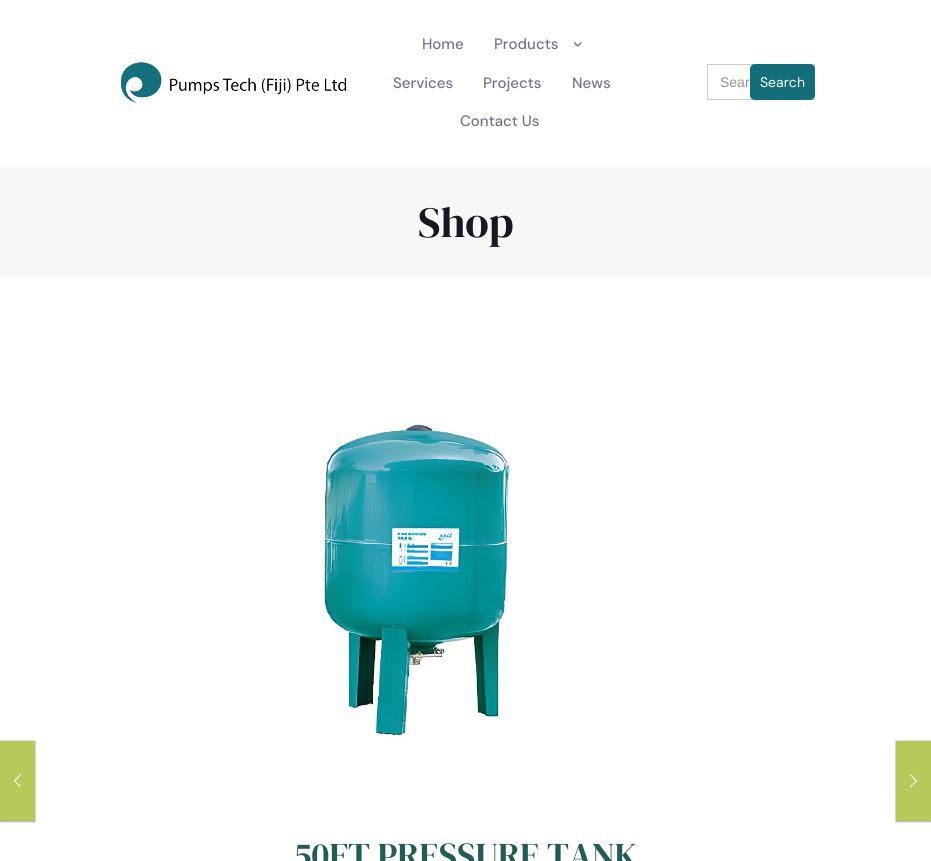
import math
import cairocffi as cairo

surface = cairo.ImageSurface(cairo.FORMAT_RGB24, 931, 861)
ctx = cairo.Context(surface)
options = cairo.FontOptions()
options.set_hint_metrics(cairo.HINT_METRICS_OFF)
options.set_hint_style(cairo.HINT_STYLE_NONE)
ctx.set_font_options(options)
ctx.set_miter_limit(4)


def rgb(r, g, b):
    ctx.set_source_rgb(r / 255, g / 255, b / 255)


def face(family, size, italic, bold):
    ctx.select_font_face(family, cairo.FONT_SLANT_ITALIC if italic else cairo.FONT_SLANT_NORMAL, cairo.FONT_WEIGHT_BOLD if bold else cairo.FONT_WEIGHT_NORMAL)
    ctx.set_font_size(size)


def label(x, y, s):
    ctx.move_to(x, y)
    ctx.show_text(s)


def rect(x, y, w, h):
    ctx.rectangle(x, y, w, h)
    ctx.fill()


def rrect(x, y, w, h, r):
    ctx.new_sub_path()
    for i, (u, v) in enumerate([(x + w - r, y + h - r), (x + r, y + h - r), (x + r, y + r), (x + w - r, y + r)]):
        ctx.arc(u, v, r, i * math.pi / 2, (i + 1) * math.pi / 2)
    ctx.close_path()


def soft_shadow(x, y, w, h, r, blur, alpha):
    ctx.push_group_with_content(cairo.CONTENT_ALPHA)
    ctx.set_operator(cairo.OPERATOR_SOURCE)
    for i in range(15, -16, -2):
        e = blur * i / 6
        if min(w, h) + 2 * e > 0:
            ctx.set_source_rgba(0, 0, 0, alpha * math.erfc((i - 1) / 8.5) / 2)
            rrect(x - e, y - e, w + 2 * e, h + 2 * e, max(0, min(r + e + blur * .6, min(w, h) / 2 + e)))
            ctx.fill()
    ctx.mask(ctx.pop_group())


def image(path, x, y, w, h):
    ctx.save()
    ctx.set_source_surface(cairo.ImageSurface.create_from_png(path), x, y)
    ctx.rectangle(x, y, w, h)
    ctx.fill()
    ctx.restore()


rgb(255, 255, 255)
ctx.paint()
rgb(9, 30, 66)
soft_shadow(-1, 740, 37, 82, 0, 0.5, 0.13)
soft_shadow(0, 742, 35, 80, 0, 0.5, 0.25)
rgb(183, 201, 88)
rect(0, 741, 35, 80)
image('image0.png', 14, 774, 7, 14)
image('image1.png', 121, 62, 226, 41)
face('DM Sans Medium', 15, 0, 0)
rgb(115, 116, 140)
label(422, 49, 'Home')
label(494, 49, 'Products')
image('image2.png', 574, 42, 8, 5)
label(393, 88, 'Services')
label(483, 88, 'Projects')
label(572, 88, 'News')
label(460, 126, 'Contact Us')
ctx.rectangle(707.5, 64.5, 107, 35)
rgb(204, 204, 204)
ctx.set_line_width(1)
ctx.stroke()
face('Liberation Sans', 14, 0, 0)
rgb(146, 146, 146)
label(720, 87, 'Sear')
rgb(18, 110, 123)
rrect(750, 64, 65, 36, 5)
ctx.fill()
face('DM Sans', 14, 0, 0)
rgb(255, 255, 255)
label(760, 87, 'Search')
rgb(247, 247, 247)
rect(0, 166, 931, 111)
face('DM Serif Display', 43, 0, 0)
rgb(22, 25, 34)
label(418, 237, 'Shop')
image('image3.png', 321, 422, 192, 321)
face('DM Serif Display', 35, 0, 0)
rgb(34, 92, 84)
label(293, 867, '50FT PRESSURE TANK')
rgb(9, 30, 66)
soft_shadow(895, 740, 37, 82, 0, 0.5, 0.13)
soft_shadow(896, 742, 35, 80, 0, 0.5, 0.25)
rgb(183, 201, 88)
rect(896, 741, 35, 80)
image('image4.png', 910, 774, 7, 14)
surface.write_to_png('render.png')
